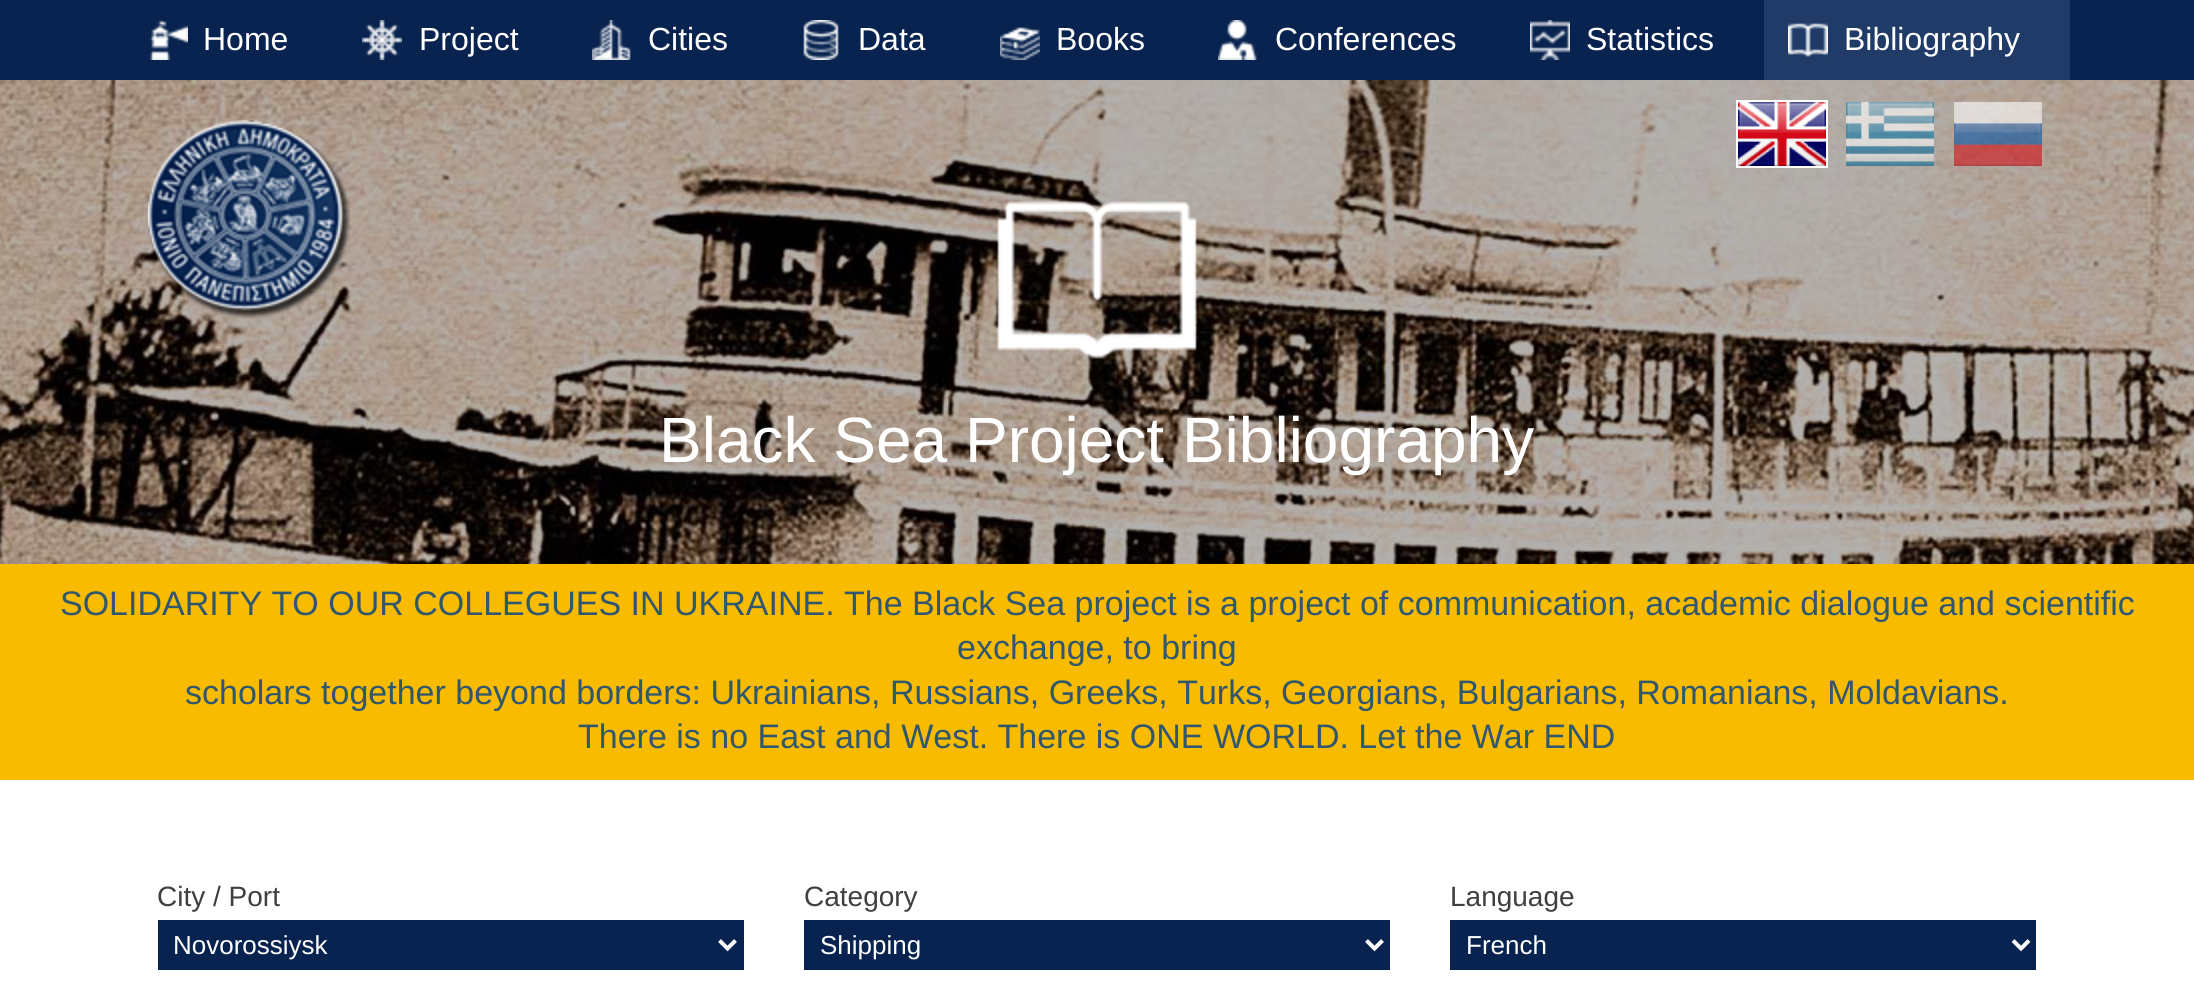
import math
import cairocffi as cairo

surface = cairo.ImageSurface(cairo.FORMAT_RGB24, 2194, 1000)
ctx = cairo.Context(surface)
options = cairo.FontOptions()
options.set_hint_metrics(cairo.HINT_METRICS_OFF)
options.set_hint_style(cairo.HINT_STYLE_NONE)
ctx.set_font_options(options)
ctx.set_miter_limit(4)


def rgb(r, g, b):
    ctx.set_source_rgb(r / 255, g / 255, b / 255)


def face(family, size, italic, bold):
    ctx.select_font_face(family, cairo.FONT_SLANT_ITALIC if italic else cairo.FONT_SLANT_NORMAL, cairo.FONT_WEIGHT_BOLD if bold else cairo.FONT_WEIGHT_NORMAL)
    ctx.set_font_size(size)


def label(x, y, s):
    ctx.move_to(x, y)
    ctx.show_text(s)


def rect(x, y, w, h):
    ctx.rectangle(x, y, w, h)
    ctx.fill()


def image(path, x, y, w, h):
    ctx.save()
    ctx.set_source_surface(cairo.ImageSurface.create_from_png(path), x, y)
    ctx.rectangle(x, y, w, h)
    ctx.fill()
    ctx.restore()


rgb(255, 255, 255)
ctx.paint()
rgb(8, 35, 79)
rect(0, 0, 2194, 80)
image('image0.png', 149, 20, 39, 40)
face('Liberation Sans', 32, 0, 0)
rgb(255, 255, 255)
label(203, 50, 'Home')
image('image1.png', 362, 20, 40, 40)
label(419, 50, 'Project')
image('image2.png', 592, 20, 39, 40)
label(648, 50, 'Cities')
image('image3.png', 803, 20, 36, 40)
label(858, 50, 'Data')
image('image4.png', 1000, 27, 40, 33)
label(1056, 50, 'Books')
image('image5.png', 1218, 20, 39, 40)
label(1275, 50, 'Conferences')
image('image6.png', 1530, 20, 40, 40)
label(1586, 50, 'Statistics')
rgb(32, 59, 103)
rect(1764, 0, 306, 80)
image('image7.png', 1788, 23, 40, 34)
rgb(255, 255, 255)
label(1844, 50, 'Bibliography')
image('image8.png', 0, 80, 2194, 484)
image('image9.png', 148, 120, 202, 199)
ctx.rectangle(1737, 101, 90, 66)
ctx.stroke()
image('image10.png', 1738, 102, 88, 64)
image('image11.png', 1846, 102, 88, 64)
image('image12.png', 1954, 102, 88, 64)
image('image13.png', 997, 201, 200, 158)
face('Liberation Sans', 64, 0, 0)
label(659, 462, 'Black Sea Project Bibliography')
rgb(248, 187, 0)
rect(0, 564, 2194, 216)
face('Liberation Sans', 34, 0, 0)
rgb(49, 87, 111)
label(60, 615, 'SOLIDARITY TO OUR COLLEGUES IN UKRAINE. The Black Sea project is a project of communication, academic dialogue and scientific')
label(957, 659, 'exchange, to bring')
label(185, 704, 'scholars together beyond borders: Ukrainians, Russians, Greeks, Turks, Georgians, Bulgarians, Romanians, Moldavians.')
label(578, 748, 'There is no East and West. There is ONE WORLD. Let the War END')
face('Liberation Sans', 28, 0, 0)
rgb(63, 63, 63)
label(157, 906, 'City / Port')
rgb(8, 35, 79)
rect(158, 920, 586, 50)
ctx.new_path()
ctx.move_to(719.5, 940.5)
ctx.line_to(727.5, 948.5)
ctx.line_to(735.5, 940.5)
rgb(255, 255, 255)
ctx.set_line_width(4)
ctx.stroke()
face('Liberation Sans', 26, 0, 0)
label(173, 954, 'Novorossiysk')
face('Liberation Sans', 28, 0, 0)
rgb(63, 63, 63)
label(804, 906, 'Category')
rgb(8, 35, 79)
rect(804, 920, 586, 50)
ctx.new_path()
ctx.move_to(1366.5, 940.5)
ctx.line_to(1374.5, 948.5)
ctx.line_to(1382.5, 940.5)
rgb(255, 255, 255)
ctx.stroke()
face('Liberation Sans', 26, 0, 0)
label(820, 954, 'Shipping')
face('Liberation Sans', 28, 0, 0)
rgb(63, 63, 63)
label(1450, 906, 'Language')
rgb(8, 35, 79)
rect(1450, 920, 586, 50)
ctx.new_path()
ctx.move_to(2013, 940.5)
ctx.line_to(2021, 948.5)
ctx.line_to(2029, 940.5)
rgb(255, 255, 255)
ctx.stroke()
face('Liberation Sans', 26, 0, 0)
label(1466, 954, 'French')
surface.write_to_png('render.png')
